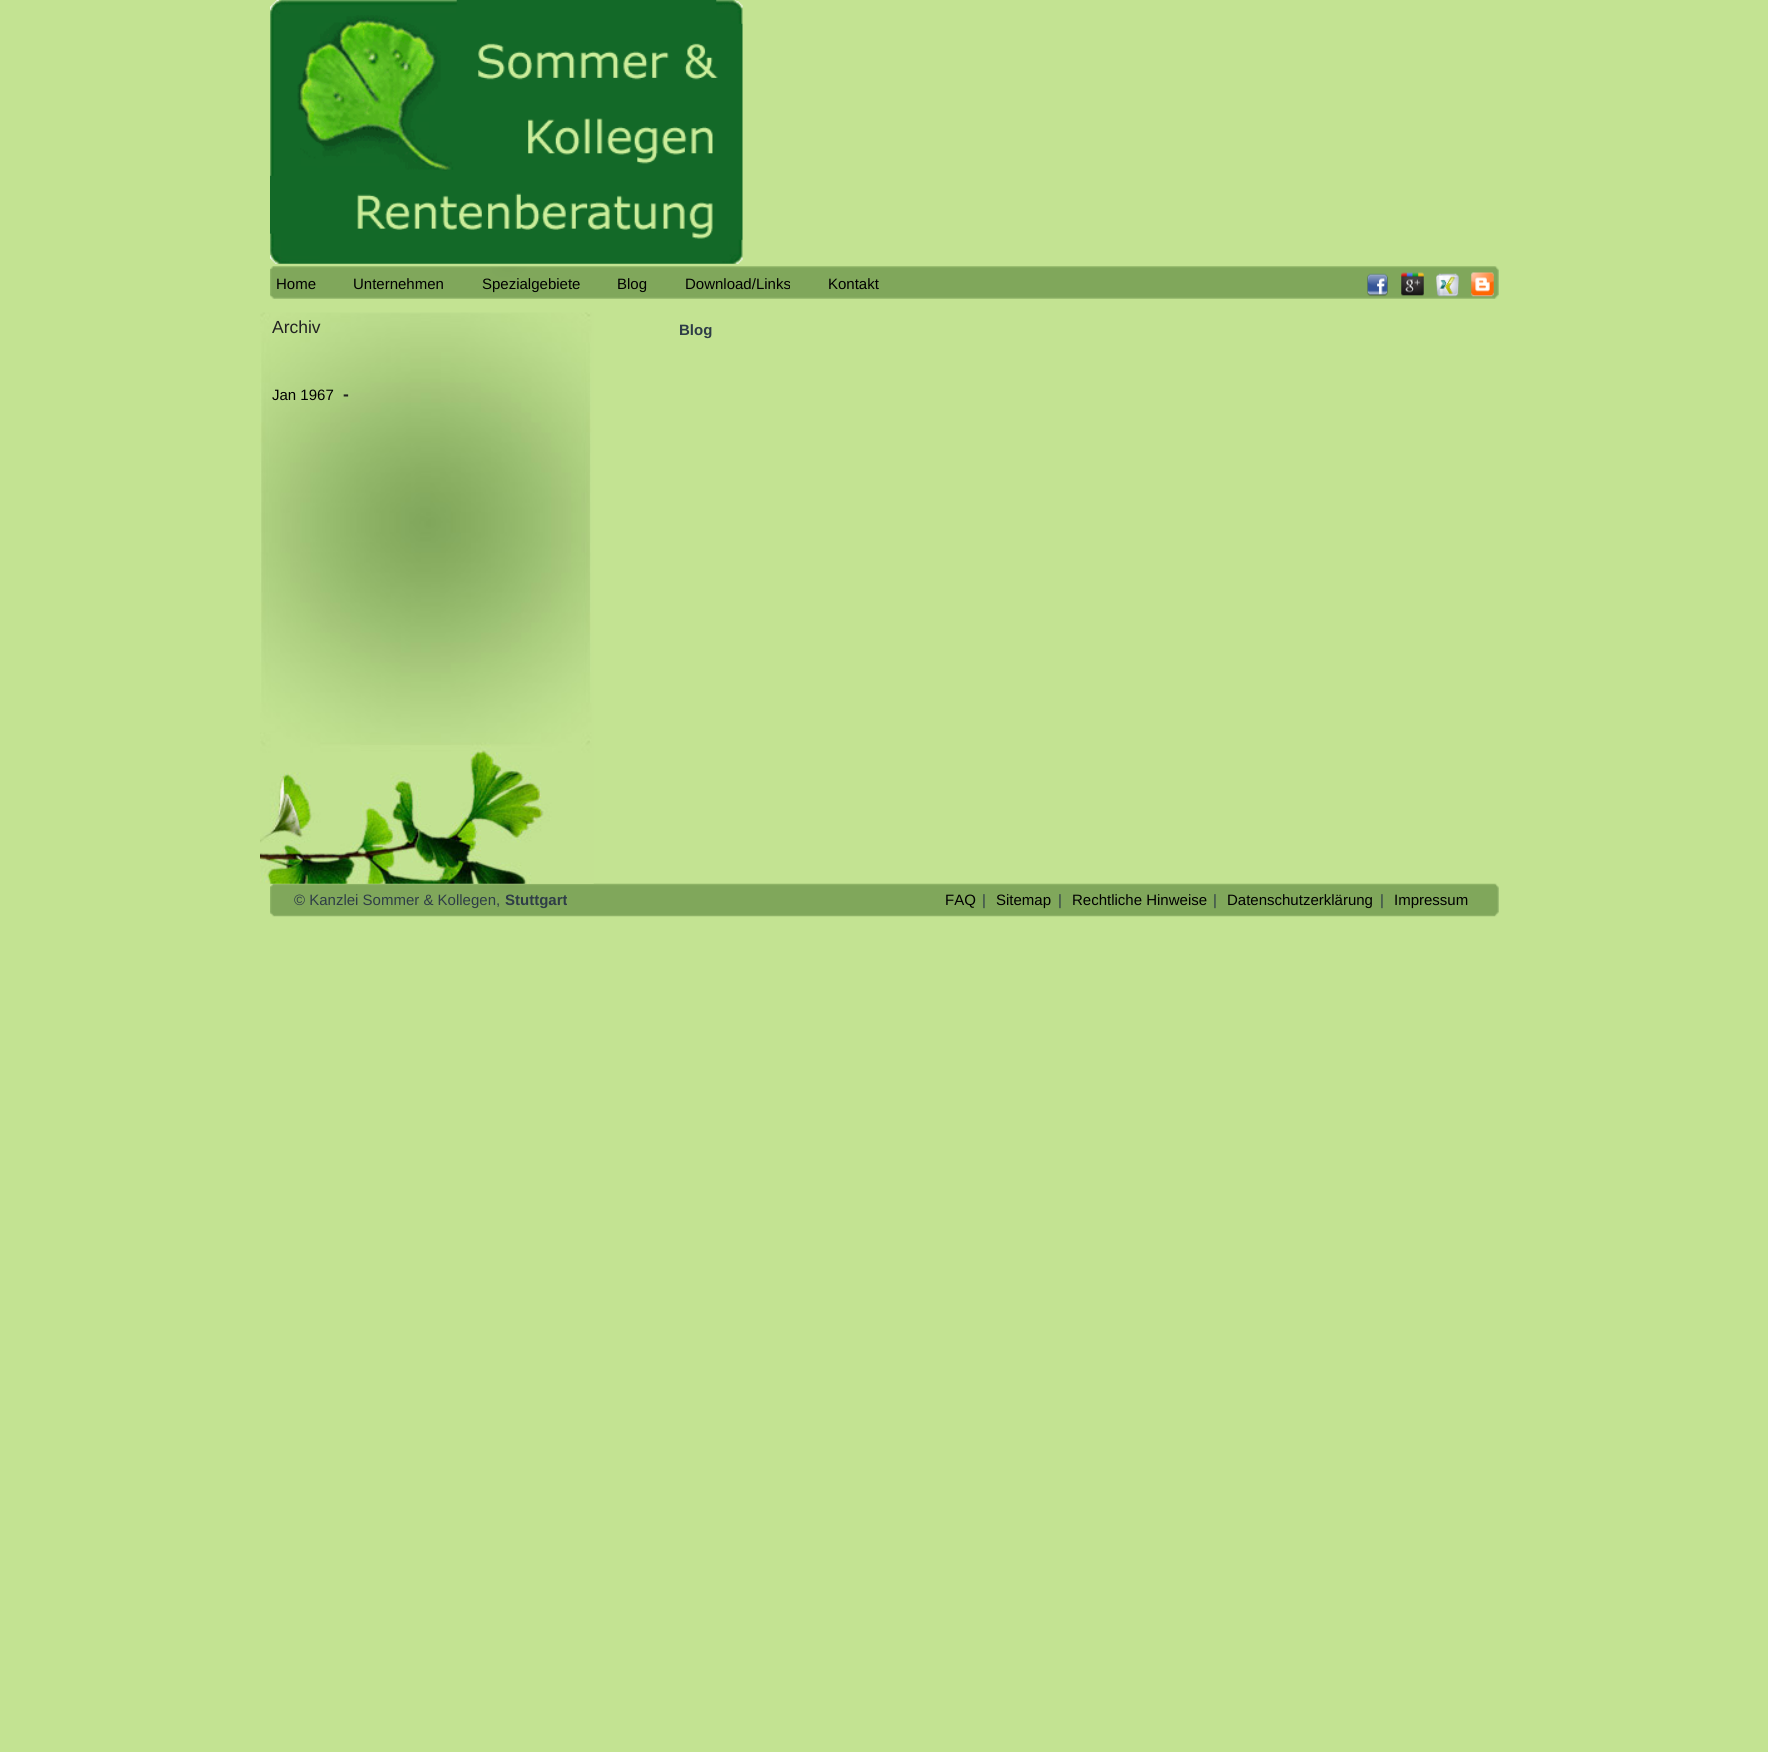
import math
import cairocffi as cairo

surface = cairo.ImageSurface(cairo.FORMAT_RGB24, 1768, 1752)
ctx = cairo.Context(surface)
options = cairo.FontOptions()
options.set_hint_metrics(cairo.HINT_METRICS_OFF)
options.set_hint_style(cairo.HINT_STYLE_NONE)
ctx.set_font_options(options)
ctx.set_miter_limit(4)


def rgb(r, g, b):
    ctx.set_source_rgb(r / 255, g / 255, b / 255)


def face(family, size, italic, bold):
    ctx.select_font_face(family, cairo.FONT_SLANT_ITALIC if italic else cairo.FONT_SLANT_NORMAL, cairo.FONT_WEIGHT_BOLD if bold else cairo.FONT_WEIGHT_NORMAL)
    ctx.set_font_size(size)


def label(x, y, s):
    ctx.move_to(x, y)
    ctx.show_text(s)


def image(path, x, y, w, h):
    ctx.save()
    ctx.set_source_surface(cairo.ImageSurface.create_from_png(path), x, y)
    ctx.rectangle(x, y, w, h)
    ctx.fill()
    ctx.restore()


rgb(195, 227, 146)
ctx.paint()
image('image0.png', 270, 0, 473, 264)
image('image1.png', 270, 266, 1229, 33)
face('Liberation Sans', 15, 0, 0)
rgb(0, 0, 0)
label(276, 289, 'Home')
label(353, 289, 'Unternehmen')
label(482, 289, 'Spezialgebiete')
label(617, 289, 'Blog')
label(685, 289, 'Download/Links')
label(828, 289, 'Kontakt')
image('image2.png', 1367, 273, 21, 24)
image('image3.png', 1401, 272, 23, 24)
image('image4.png', 1436, 273, 23, 24)
image('image5.png', 1471, 272, 23, 25)
image('image7.png', 270, 883, 1229, 34)
image('image6.png', 260, 312, 334, 572)
face('Liberation Sans', 17.5, 0, 0)
rgb(34, 34, 34)
label(272, 333, 'Archiv')
face('Liberation Sans', 15, 0, 0)
rgb(0, 0, 0)
label(272, 400, 'Jan 1967')
face('Liberation Sans', 17.5, 0, 1)
rgb(34, 34, 34)
label(343, 400, '-')
face('Liberation Sans', 15, 0, 1)
rgb(46, 61, 71)
label(679, 335, 'Blog')
face('Liberation Sans', 15, 0, 0)
label(294, 905, '© Kanzlei Sommer & Kollegen,')
face('Liberation Sans', 15, 0, 1)
label(505, 905, 'Stuttgart')
face('Liberation Sans', 15, 0, 0)
rgb(0, 0, 0)
label(945, 905, 'FAQ')
rgb(46, 61, 71)
label(982, 905, '|')
rgb(0, 0, 0)
label(996, 905, 'Sitemap')
rgb(46, 61, 71)
label(1058, 905, '|')
rgb(0, 0, 0)
label(1072, 905, 'Rechtliche Hinweise')
rgb(46, 61, 71)
label(1213, 905, '|')
rgb(0, 0, 0)
label(1227, 905, 'Datenschutzerklärung')
rgb(46, 61, 71)
label(1380, 905, '|')
rgb(0, 0, 0)
label(1394, 905, 'Impressum')
surface.write_to_png('render.png')
